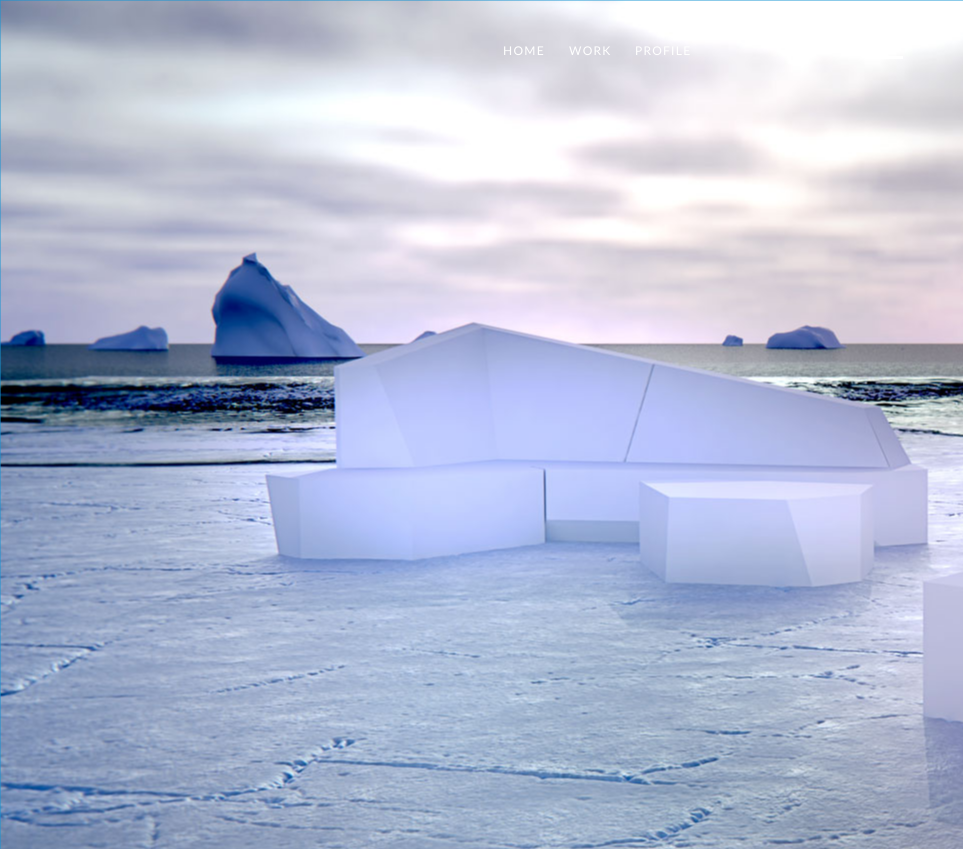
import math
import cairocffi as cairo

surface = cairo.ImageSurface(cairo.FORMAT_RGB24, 963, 849)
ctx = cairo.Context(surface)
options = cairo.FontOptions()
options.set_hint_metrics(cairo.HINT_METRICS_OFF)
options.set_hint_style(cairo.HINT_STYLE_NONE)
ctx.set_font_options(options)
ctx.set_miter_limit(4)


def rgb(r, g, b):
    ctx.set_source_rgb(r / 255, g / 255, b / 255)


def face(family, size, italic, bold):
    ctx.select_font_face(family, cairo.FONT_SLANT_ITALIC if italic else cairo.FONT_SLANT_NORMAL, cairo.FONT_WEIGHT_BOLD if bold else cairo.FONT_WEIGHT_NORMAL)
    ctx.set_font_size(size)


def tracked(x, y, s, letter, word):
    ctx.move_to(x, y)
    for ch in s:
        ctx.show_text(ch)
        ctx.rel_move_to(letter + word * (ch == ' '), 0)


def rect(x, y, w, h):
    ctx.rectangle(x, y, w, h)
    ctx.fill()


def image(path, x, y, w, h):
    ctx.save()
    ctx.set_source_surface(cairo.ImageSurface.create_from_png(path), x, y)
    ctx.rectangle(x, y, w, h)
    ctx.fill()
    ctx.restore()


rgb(23, 148, 210)
ctx.paint()
image('image0.png', 0, 0, 963, 849)
face('Lato', 12, 0, 0)
rgb(255, 255, 255)
tracked(503, 55, 'HOME', 1.25, 0)
tracked(569, 55, 'WORK', 1.25, 0)
tracked(635, 55, 'PROFILE', 1.25, 0)
rect(877, 56, 26, 3)
surface.write_to_png('render.png')
